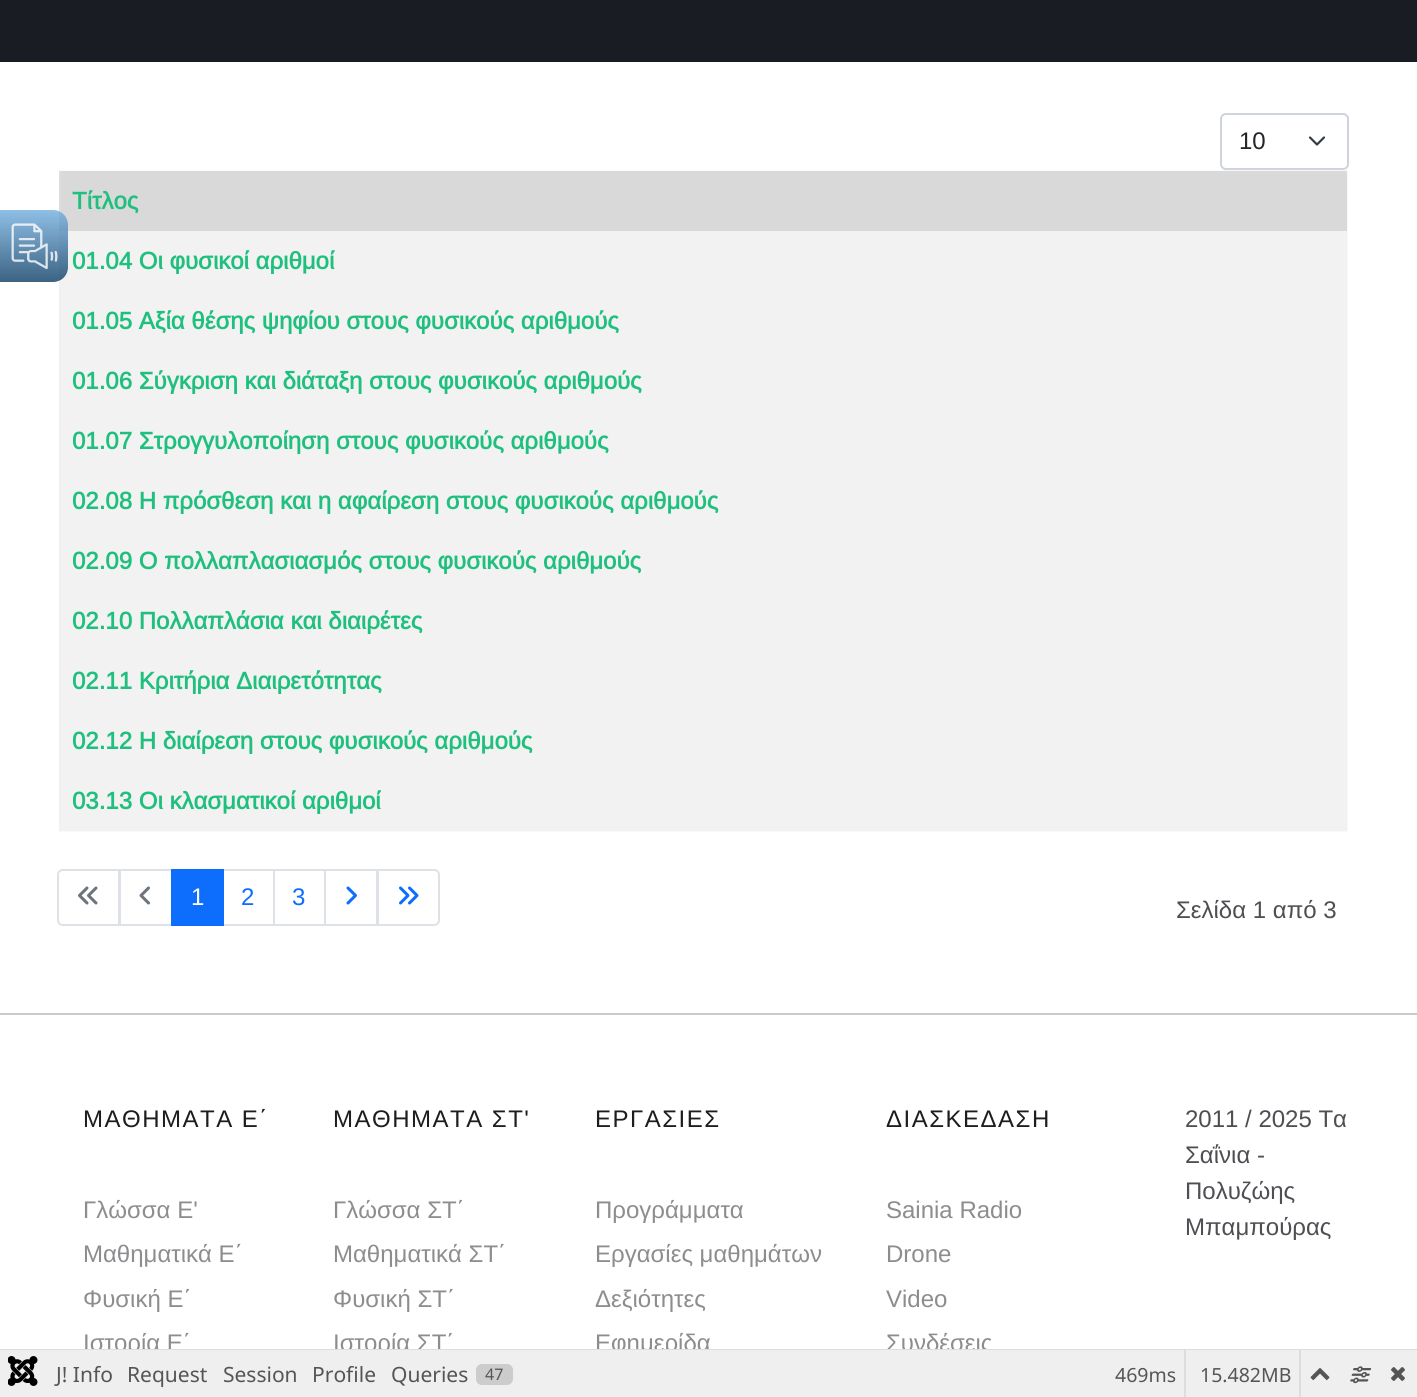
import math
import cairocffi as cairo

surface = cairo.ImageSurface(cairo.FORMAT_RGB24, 1417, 1397)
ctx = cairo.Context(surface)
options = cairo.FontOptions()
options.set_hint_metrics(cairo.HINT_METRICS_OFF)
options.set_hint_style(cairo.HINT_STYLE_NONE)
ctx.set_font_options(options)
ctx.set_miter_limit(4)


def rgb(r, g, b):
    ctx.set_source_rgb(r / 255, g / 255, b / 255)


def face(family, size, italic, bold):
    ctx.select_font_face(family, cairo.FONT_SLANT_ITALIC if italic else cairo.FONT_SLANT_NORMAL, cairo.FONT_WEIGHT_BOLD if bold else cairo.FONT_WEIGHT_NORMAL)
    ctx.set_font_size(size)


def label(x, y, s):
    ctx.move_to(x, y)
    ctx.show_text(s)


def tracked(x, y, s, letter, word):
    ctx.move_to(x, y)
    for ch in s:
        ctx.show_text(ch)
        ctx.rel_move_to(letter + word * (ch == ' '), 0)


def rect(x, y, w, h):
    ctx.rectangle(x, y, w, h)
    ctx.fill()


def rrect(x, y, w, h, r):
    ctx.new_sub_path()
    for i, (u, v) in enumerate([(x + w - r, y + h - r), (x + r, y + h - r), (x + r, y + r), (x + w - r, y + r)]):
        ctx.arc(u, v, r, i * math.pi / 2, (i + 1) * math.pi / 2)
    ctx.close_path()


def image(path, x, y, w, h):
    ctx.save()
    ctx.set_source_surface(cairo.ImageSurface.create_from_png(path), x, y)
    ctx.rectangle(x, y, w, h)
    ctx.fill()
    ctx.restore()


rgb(255, 255, 255)
ctx.paint()
rgb(217, 217, 217)
rect(61, 171, 1286, 60)
rgb(221, 221, 221)
rect(59, 171, 2, 60)
rgb(242, 242, 242)
rect(61, 231, 1286, 600)
rgb(239, 240, 240)
rect(59, 231, 2, 600)
gradient = cairo.LinearGradient(34, 210, 34, 282)
gradient.add_color_stop_rgba(0, 0.451, 0.686, 0.878, 0.8)
gradient.add_color_stop_rgba(1, 0.043, 0.235, 0.388, 0.8)
ctx.set_source(gradient)
ctx.new_path()
ctx.move_to(0, 210)
ctx.line_to(53, 210)
ctx.curve_to(61.5, 210, 68, 216.5, 68, 225)
ctx.line_to(68, 267)
ctx.curve_to(68, 275.5, 61.5, 282, 53, 282)
ctx.line_to(0, 282)
ctx.close_path()
ctx.fill()
image('image0.png', 11, 223, 47, 47)
rgb(26, 28, 35)
rect(0, 0, 1417, 62)
ctx.new_path()
ctx.move_to(1310, 137.5)
ctx.line_to(1317, 144.5)
ctx.line_to(1324, 137.5)
rgb(52, 58, 64)
ctx.set_line_width(2.2)
ctx.set_line_cap(cairo.LINE_CAP_ROUND)
ctx.set_line_join(cairo.LINE_JOIN_ROUND)
ctx.stroke()
rrect(1221, 114, 127, 55, 5)
rgb(206, 212, 218)
ctx.set_line_width(2)
ctx.set_line_cap(cairo.LINE_CAP_BUTT)
ctx.set_line_join(cairo.LINE_JOIN_MITER)
ctx.stroke()
face('Arimo', 24, 0, 0)
rgb(33, 37, 41)
label(1239, 149, '10')
rgb(249, 249, 250)
ctx.new_path()
ctx.move_to(57, 170)
ctx.line_to(1348, 170)
ctx.line_to(1347, 171)
ctx.line_to(58, 171)
ctx.close_path()
ctx.fill()
ctx.set_source_rgba(0.906, 0.91, 0.918, 0.25)
ctx.new_path()
ctx.move_to(1348, 170)
ctx.line_to(1348, 832)
ctx.line_to(1347, 831)
ctx.line_to(1347, 171)
ctx.close_path()
ctx.fill()
ctx.new_path()
ctx.move_to(1348, 832)
ctx.line_to(57, 832)
ctx.line_to(58, 831)
ctx.line_to(1347, 831)
ctx.close_path()
ctx.fill()
face('Arimo', 24, 0, 1)
rgb(31, 192, 126)
label(72, 209, 'Τίτλος')
label(72, 269, '01.04 Οι φυσικοί αριθμοί')
label(72, 329, '01.05 Αξία θέσης ψηφίου στους φυσικούς αριθμούς')
label(72, 389, '01.06 Σύγκριση και διάταξη στους φυσικούς αριθμούς')
label(72, 449, '01.07 Στρογγυλοποίηση στους φυσικούς αριθμούς')
label(72, 509, '02.08 Η πρόσθεση και η αφαίρεση στους φυσικούς αριθμούς')
label(72, 569, '02.09 Ο πολλαπλασιασμός στους φυσικούς αριθμούς')
label(72, 629, '02.10 Πολλαπλάσια και διαιρέτες')
label(72, 689, '02.11 Κριτήρια Διαιρετότητας')
label(72, 749, '02.12 Η διαίρεση στους φυσικούς αριθμούς')
label(72, 809, '03.13 Οι κλασματικοί αριθμοί')
ctx.new_path()
ctx.move_to(63, 870)
ctx.line_to(119, 870)
ctx.line_to(119, 925)
ctx.line_to(63, 925)
ctx.curve_to(60, 925, 58, 923, 58, 920)
ctx.line_to(58, 875)
ctx.curve_to(58, 872, 60, 870, 63, 870)
ctx.close_path()
rgb(222, 226, 230)
ctx.stroke()
image('image1.png', 78, 886, 20, 19)
ctx.rectangle(120, 870, 52, 55)
ctx.stroke()
image('image2.png', 139, 886, 11, 19)
ctx.rectangle(223, 870, 51, 55)
ctx.stroke()
rgb(13, 110, 253)
rect(171, 869, 53, 57)
face('Arimo', 24, 0, 0)
rgb(255, 255, 255)
label(191, 905, '1')
rgb(13, 110, 253)
label(241, 905, '2')
ctx.rectangle(274, 870, 51, 55)
rgb(222, 226, 230)
ctx.stroke()
rgb(13, 110, 253)
label(292, 905, '3')
ctx.rectangle(325, 870, 52, 55)
rgb(222, 226, 230)
ctx.stroke()
image('image3.png', 346, 886, 11, 19)
rgb(255, 255, 255)
ctx.new_path()
ctx.move_to(378, 870)
ctx.line_to(434, 870)
ctx.curve_to(437, 870, 439, 872, 439, 875)
ctx.line_to(439, 920)
ctx.curve_to(439, 923, 437, 925, 434, 925)
ctx.line_to(378, 925)
ctx.close_path()
ctx.fill_preserve()
rgb(222, 226, 230)
ctx.stroke()
image('image4.png', 399, 886, 20, 19)
rgb(79, 78, 83)
label(1176, 918, 'Σελίδα 1 από 3')
rgb(202, 202, 203)
rect(0, 1013, 1417, 2)
rgb(29, 29, 30)
tracked(83, 1127, 'ΜΑΘΗΜΑΤΑ Ε΄', 1.5, 0)
rgb(141, 140, 143)
label(83, 1218, 'Γλώσσα Ε\'')
label(83, 1262, 'Μαθηματικά Ε΄')
label(83, 1307, 'Φυσική Ε΄')
label(83, 1351, 'Ιστορία Ε΄')
rgb(29, 29, 30)
tracked(333, 1127, 'ΜΑΘΗΜΑΤΑ ΣΤ\'', 1.5, 0)
rgb(141, 140, 143)
label(333, 1218, 'Γλώσσα ΣΤ΄')
label(333, 1262, 'Μαθηματικά ΣΤ΄')
label(333, 1307, 'Φυσική ΣΤ΄')
label(333, 1351, 'Ιστορία ΣΤ΄')
rgb(29, 29, 30)
tracked(595, 1127, 'ΕΡΓΑΣΙΕΣ', 1.5, 0)
rgb(141, 140, 143)
label(595, 1218, 'Προγράμματα')
label(595, 1262, 'Εργασίες μαθημάτων')
label(595, 1307, 'Δεξιότητες')
label(595, 1351, 'Εφημερίδα')
rgb(29, 29, 30)
tracked(886, 1127, 'ΔΙΑΣΚΕΔΑΣΗ', 1.5, 0)
rgb(141, 140, 143)
label(886, 1218, 'Sainia Radio')
label(886, 1262, 'Drone')
label(886, 1307, 'Video')
label(886, 1351, 'Συνδέσεις')
rgb(79, 78, 83)
label(1185, 1127, '2011 / 2025 Τα')
label(1185, 1163, 'Σαΐνια -')
label(1185, 1199, 'Πολυζώης')
label(1185, 1235, 'Μπαμπούρας')
rgb(221, 221, 221)
rect(0, 1349, 1417, 1)
rgb(239, 239, 239)
rect(0, 1350, 1417, 47)
image('image5.png', 8, 1356, 30, 30)
face('Noto Sans', 21, 0, 0)
rgb(85, 85, 85)
label(56, 1382, 'J! Info')
label(127, 1382, 'Request')
label(223, 1382, 'Session')
label(312, 1382, 'Profile')
label(391, 1382, 'Queries')
rgb(204, 204, 204)
rrect(476, 1364, 37, 21, 6)
ctx.fill()
face('Noto Sans', 16, 0, 0)
rgb(85, 85, 85)
label(485, 1380, '47')
rgb(221, 221, 221)
rect(1184, 1350, 2, 47)
face('Noto Sans', 19.5, 0, 0)
rgb(85, 85, 85)
label(1115, 1382, '469ms')
rgb(221, 221, 221)
rect(1299, 1350, 2, 47)
rgb(85, 85, 85)
label(1200, 1382, '15.482MB')
image('image6.png', 1310, 1368, 20, 12)
image('image7.png', 1350, 1366, 22, 18)
image('image8.png', 1391, 1367, 14, 14)
surface.write_to_png('render.png')
